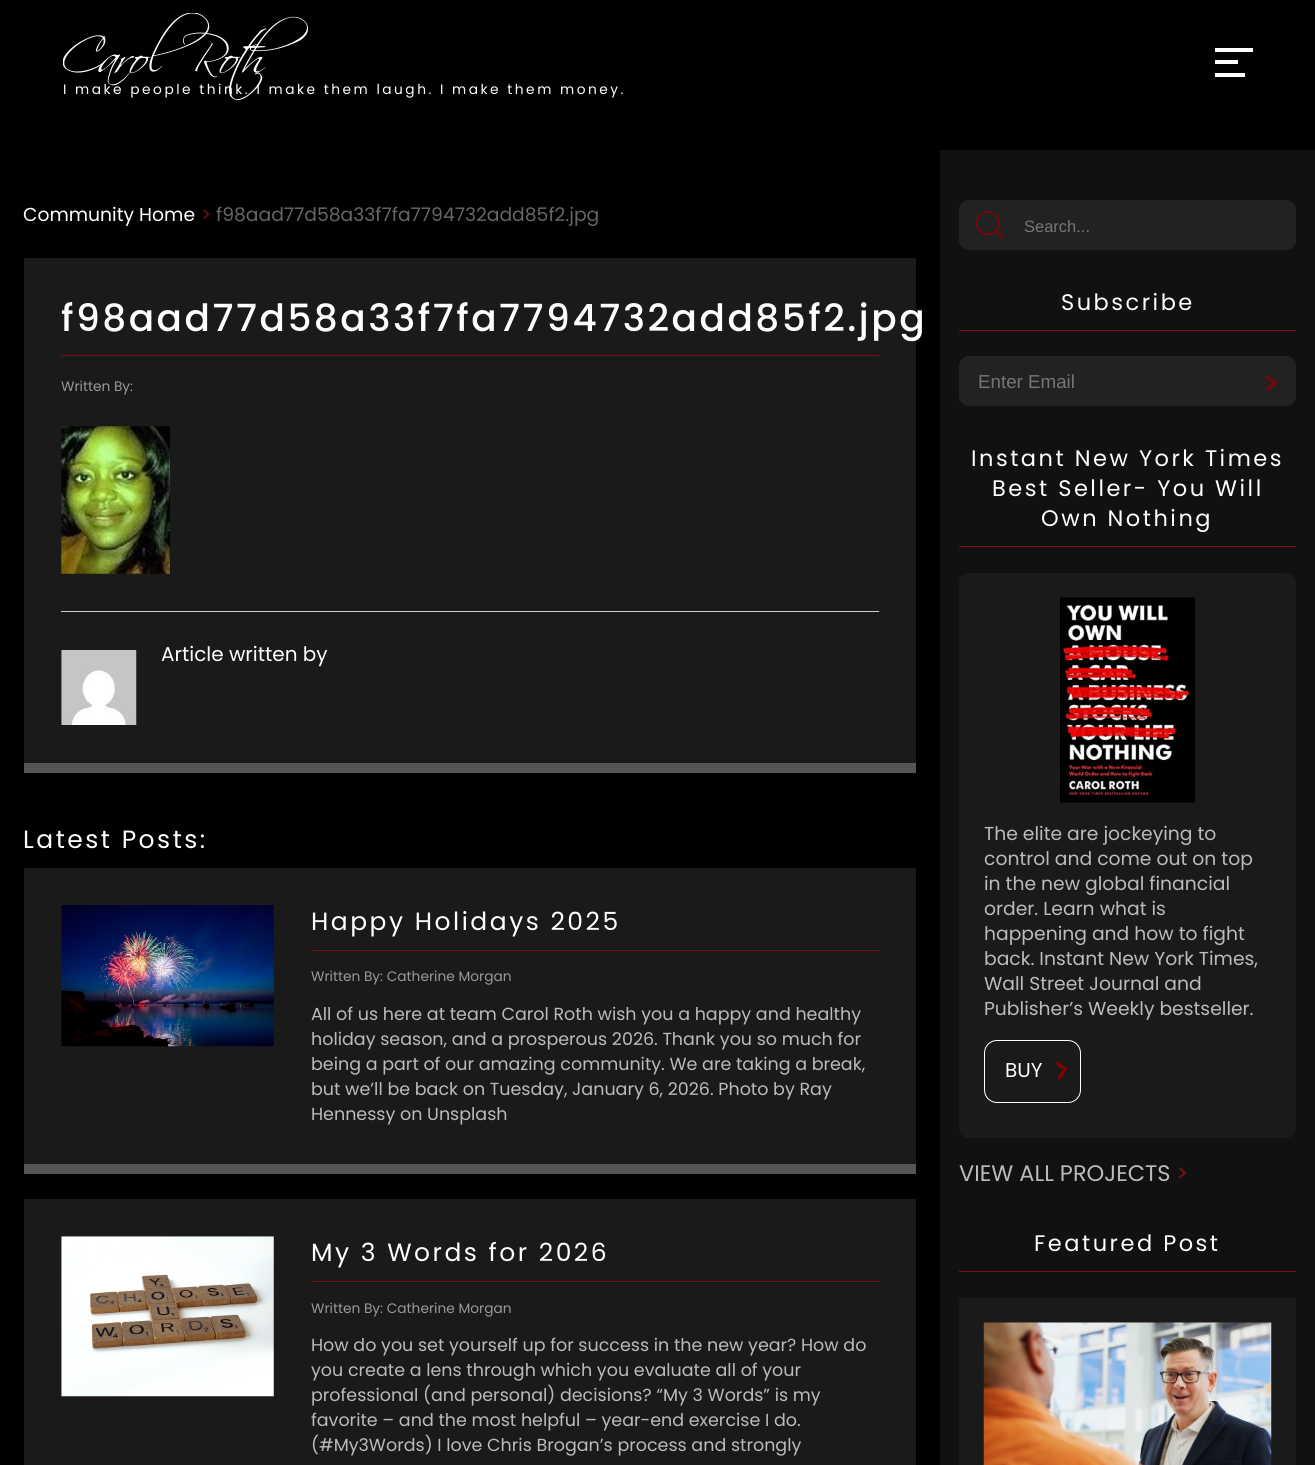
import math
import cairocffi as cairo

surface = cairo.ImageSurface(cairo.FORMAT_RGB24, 1315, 1465)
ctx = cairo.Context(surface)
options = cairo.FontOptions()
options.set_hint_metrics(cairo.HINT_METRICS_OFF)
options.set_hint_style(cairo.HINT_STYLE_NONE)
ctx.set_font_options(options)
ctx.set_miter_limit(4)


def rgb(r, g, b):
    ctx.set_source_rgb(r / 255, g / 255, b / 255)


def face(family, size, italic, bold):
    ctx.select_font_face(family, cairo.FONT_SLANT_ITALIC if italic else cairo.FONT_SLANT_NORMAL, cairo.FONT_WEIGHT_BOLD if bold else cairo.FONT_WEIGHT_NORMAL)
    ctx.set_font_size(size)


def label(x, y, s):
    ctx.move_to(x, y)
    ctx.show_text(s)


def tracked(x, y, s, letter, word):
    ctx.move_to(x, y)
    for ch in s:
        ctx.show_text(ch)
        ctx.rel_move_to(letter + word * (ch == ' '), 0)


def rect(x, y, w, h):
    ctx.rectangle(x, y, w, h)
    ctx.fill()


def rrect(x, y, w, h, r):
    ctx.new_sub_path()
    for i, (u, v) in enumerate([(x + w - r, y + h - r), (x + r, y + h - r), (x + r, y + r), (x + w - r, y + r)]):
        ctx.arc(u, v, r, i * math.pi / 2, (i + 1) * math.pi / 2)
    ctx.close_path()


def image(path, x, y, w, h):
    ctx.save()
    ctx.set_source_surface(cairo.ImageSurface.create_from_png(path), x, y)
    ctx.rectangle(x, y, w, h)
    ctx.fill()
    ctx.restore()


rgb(0, 0, 0)
ctx.paint()
rgb(255, 255, 255)
rect(1215, 48, 38, 4)
rect(1215, 60, 23, 4)
rect(1215, 73, 30, 4)
face('Poppins', 13.75, 0, 0)
tracked(63, 94, 'I make people think. I make them laugh. I make them money.', 2.5, 0)
image('image0.png', 63, 13, 245, 87)
face('Poppins', 18.75, 0, 0)
label(23, 221, 'Community Home')
rgb(124, 17, 17)
label(201, 221, '>')
rgb(102, 102, 102)
label(216, 221, 'f98aad77d58a33f7fa7794732add85f2.jpg')
rgb(26, 26, 26)
rect(24, 258, 892, 505)
rgb(85, 85, 85)
rect(24, 763, 892, 10)
rgb(124, 17, 17)
rect(61, 355, 818, 1)
face('Poppins Medium', 37.5, 0, 0)
rgb(255, 255, 255)
tracked(61, 331, 'f98aad77d58a33f7fa7794732add85f2.jpg', 2.5, 0)
face('Poppins', 13.75, 0, 0)
rgb(153, 153, 153)
label(61, 391, 'Written By:')
image('image1.png', 61, 426, 109, 148)
rgb(204, 204, 204)
rect(61, 611, 818, 1)
image('image2.png', 61, 650, 76, 75)
face('Poppins', 20, 0, 0)
rgb(255, 255, 255)
label(161, 661, 'Article written by')
face('Poppins', 25, 0, 0)
tracked(23, 848, 'Latest Posts:', 2.5, 0)
rgb(26, 26, 26)
rect(24, 868, 892, 296)
rgb(85, 85, 85)
rect(24, 1164, 892, 10)
image('image3.png', 61, 905, 213, 142)
rgb(124, 17, 17)
rect(311, 950, 568, 1)
rgb(255, 255, 255)
tracked(311, 930, 'Happy Holidays 2025', 2.5, 0)
face('Poppins', 13.75, 0, 0)
rgb(153, 153, 153)
label(311, 981, 'Written By: Catherine Morgan')
face('Poppins', 17.5, 0, 0)
rgb(187, 187, 187)
label(311, 1020, 'All of us here at team Carol Roth wish you a happy and healthy')
label(311, 1045, 'holiday season, and a prosperous 2026. Thank you so much for')
label(311, 1070, 'being a part of our amazing community. We are taking a break,')
label(311, 1095, 'but we’ll be back on Tuesday, January 6, 2026. Photo by Ray')
label(311, 1120, 'Hennessy on Unsplash')
rgb(26, 26, 26)
rect(24, 1199, 892, 266)
image('image4.png', 61, 1236, 213, 161)
rgb(124, 17, 17)
rect(311, 1281, 568, 1)
face('Poppins', 25, 0, 0)
rgb(255, 255, 255)
tracked(311, 1261, 'My 3 Words for 2026', 2.5, 0)
face('Poppins', 13.75, 0, 0)
rgb(153, 153, 153)
label(311, 1313, 'Written By: Catherine Morgan')
face('Poppins', 17.5, 0, 0)
rgb(187, 187, 187)
label(311, 1351, 'How do you set yourself up for success in the new year? How do')
label(311, 1376, 'you create a lens through which you evaluate all of your')
label(311, 1401, 'professional (and personal) decisions? “My 3 Words” is my')
label(311, 1426, 'favorite – and the most helpful – year-end exercise I do.')
label(311, 1451, '(#My3Words) I love Chris Brogan’s process and strongly')
rgb(17, 17, 17)
rect(940, 150, 375, 1315)
rgb(34, 34, 34)
rrect(959, 200, 337, 50, 10)
ctx.fill()
image('image5.png', 975, 211, 30, 29)
face('Liberation Sans', 16.5, 0, 0)
rgb(117, 117, 117)
label(1024, 232, 'Search...')
rgb(124, 17, 17)
rect(959, 330, 337, 1)
face('Poppins', 22.5, 0, 0)
rgb(255, 255, 255)
tracked(1061, 310, 'Subscribe', 2.5, 0)
rgb(34, 34, 34)
rrect(959, 356, 337, 50, 10)
ctx.fill()
face('Liberation Sans', 18.75, 0, 0)
rgb(117, 117, 117)
label(978, 388, 'Enter Email')
image('image6.png', 1265, 375, 13, 16)
rgb(124, 17, 17)
rect(959, 546, 337, 1)
face('Poppins', 22.5, 0, 0)
rgb(255, 255, 255)
tracked(971, 466, 'Instant New York Times', 2.5, 0)
tracked(992, 496, 'Best Seller- You Will', 2.5, 0)
tracked(1041, 526, 'Own Nothing', 2.5, 0)
rgb(26, 26, 26)
rrect(959, 573, 337, 565, 10)
ctx.fill()
image('image7.png', 1060, 597, 135, 206)
face('Poppins', 18.75, 0, 0)
rgb(187, 187, 187)
label(984, 840, 'The elite are jockeying to')
label(984, 865, 'control and come out on top')
label(984, 890, 'in the new global financial')
label(984, 915, 'order. Learn what is')
label(984, 940, 'happening and how to fight')
label(984, 965, 'back. Instant New York Times,')
label(984, 990, 'Wall Street Journal and')
label(984, 1015, 'Publisher’s Weekly bestseller.')
rrect(984.5, 1040.5, 96, 62, 12.5)
rgb(255, 255, 255)
ctx.set_line_width(1)
ctx.stroke()
face('Poppins', 20, 0, 0)
label(1005, 1077, 'BUY')
ctx.new_path()
ctx.move_to(1066, 1068)
ctx.line_to(1058.5, 1079)
ctx.move_to(1056, 1062.5)
ctx.line_to(1066.5, 1070)
rgb(135, 0, 6)
ctx.set_line_width(3.1)
ctx.stroke()
face('Poppins', 22.5, 0, 0)
rgb(187, 187, 187)
label(959, 1181, 'VIEW ALL PROJECTS')
rgb(124, 17, 17)
label(1176, 1181, '>')
rect(959, 1271, 337, 1)
rgb(255, 255, 255)
tracked(1034, 1251, 'Featured Post', 2.5, 0)
rgb(26, 26, 26)
rect(959, 1298, 337, 167)
image('image8.png', 983, 1322, 289, 143)
surface.write_to_png('render.png')
